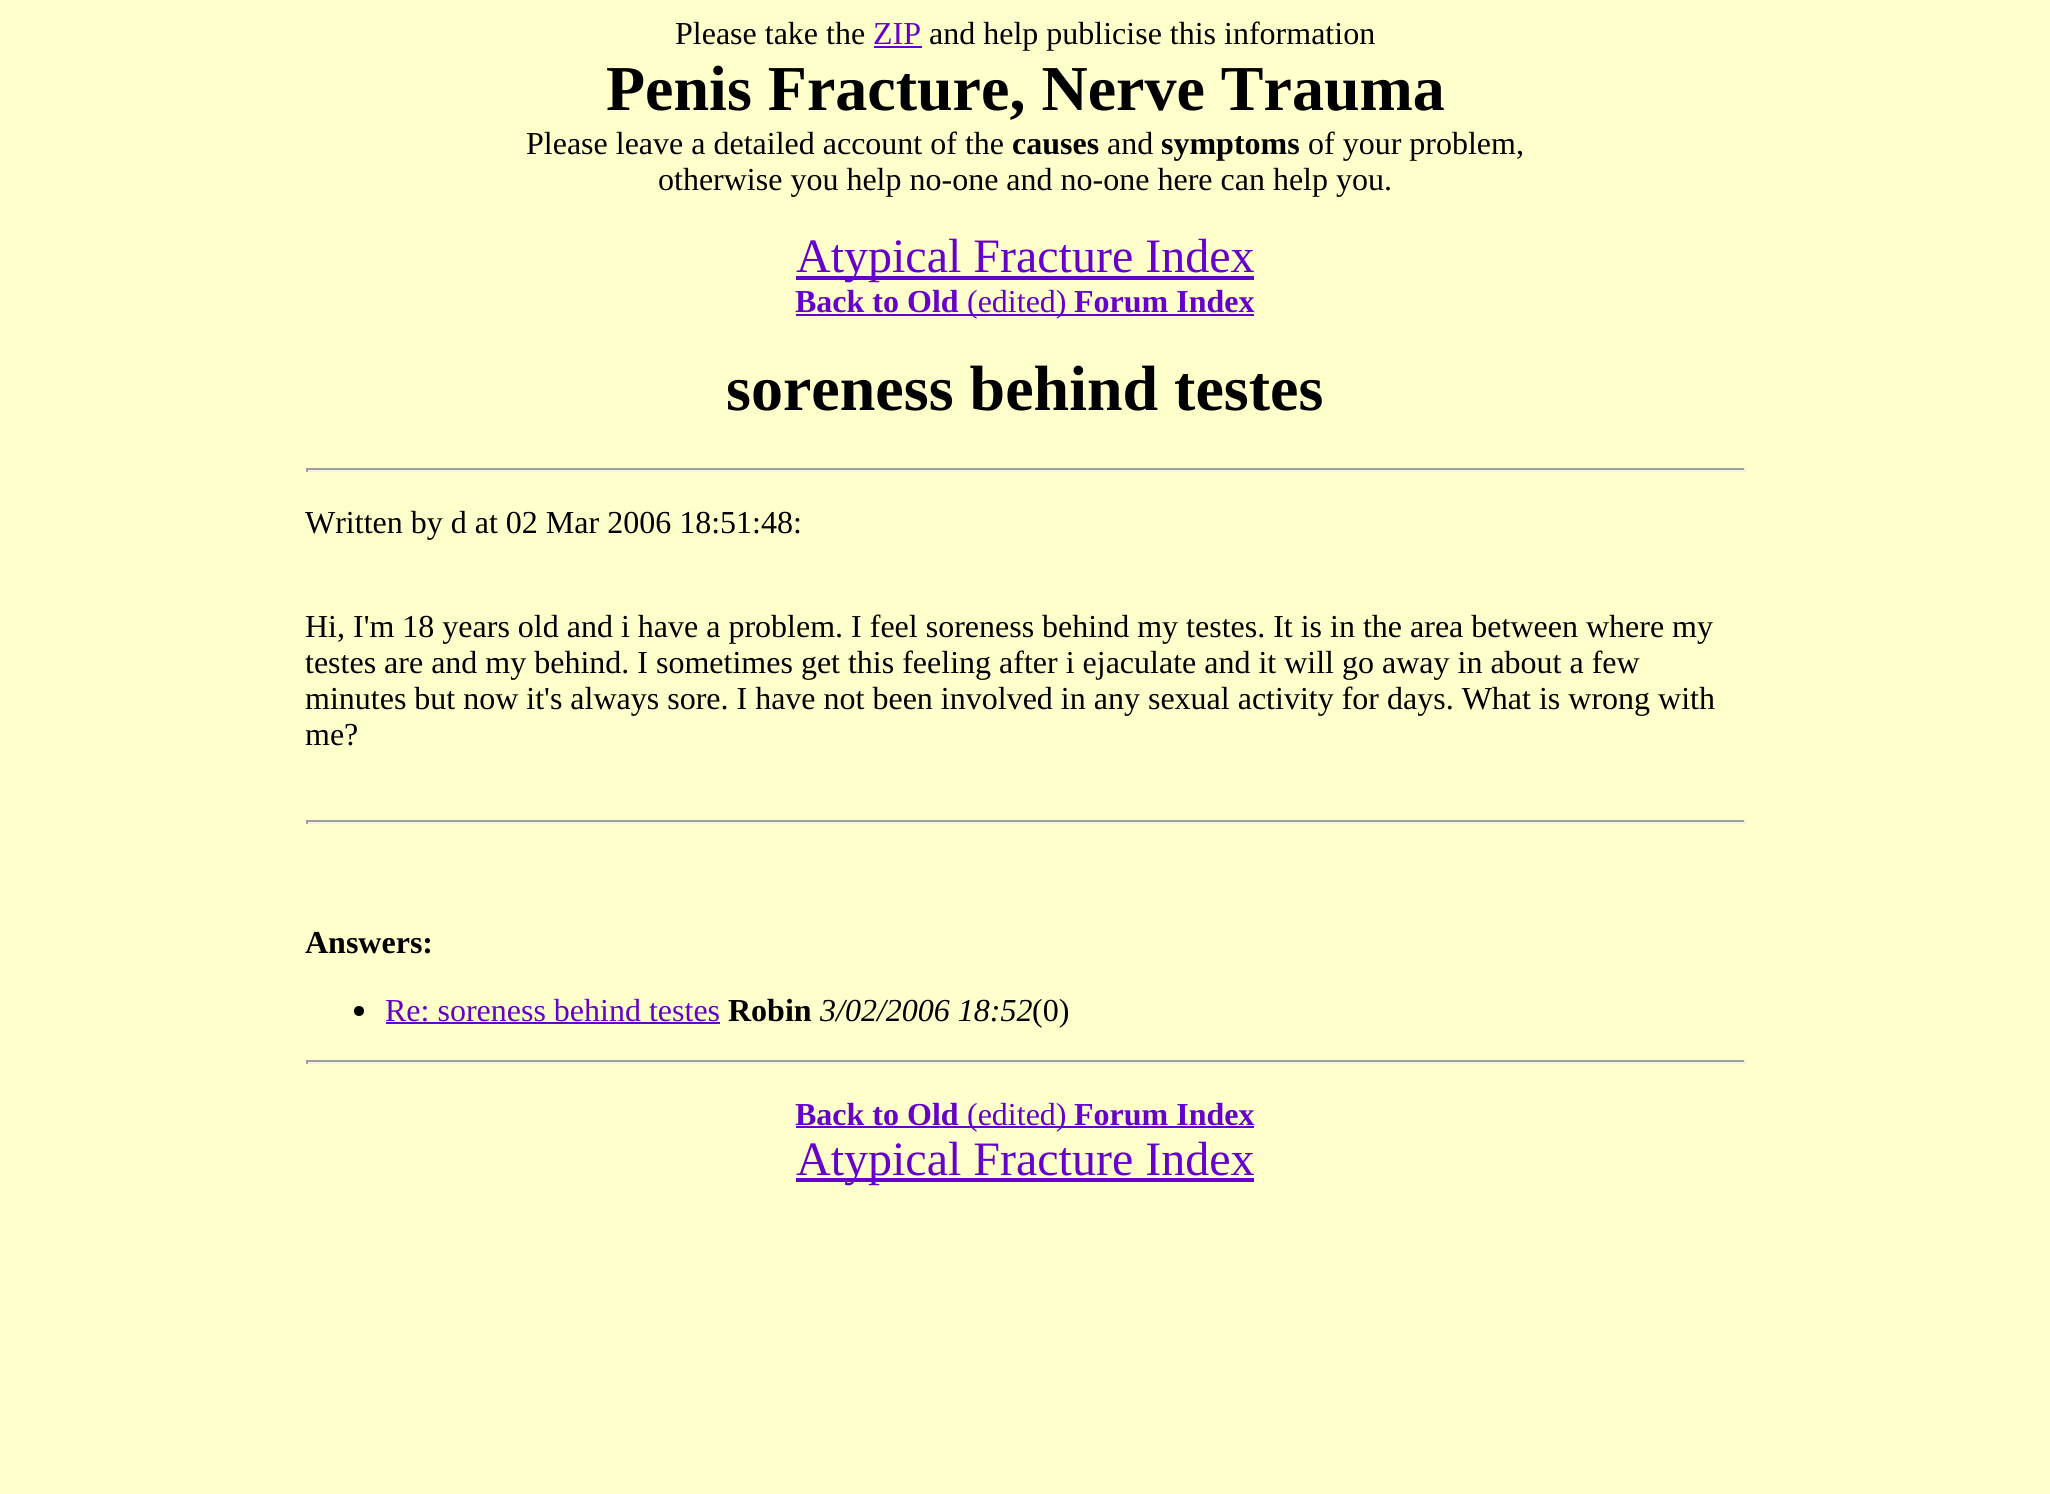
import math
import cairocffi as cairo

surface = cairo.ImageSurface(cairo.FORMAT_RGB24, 2050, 1494)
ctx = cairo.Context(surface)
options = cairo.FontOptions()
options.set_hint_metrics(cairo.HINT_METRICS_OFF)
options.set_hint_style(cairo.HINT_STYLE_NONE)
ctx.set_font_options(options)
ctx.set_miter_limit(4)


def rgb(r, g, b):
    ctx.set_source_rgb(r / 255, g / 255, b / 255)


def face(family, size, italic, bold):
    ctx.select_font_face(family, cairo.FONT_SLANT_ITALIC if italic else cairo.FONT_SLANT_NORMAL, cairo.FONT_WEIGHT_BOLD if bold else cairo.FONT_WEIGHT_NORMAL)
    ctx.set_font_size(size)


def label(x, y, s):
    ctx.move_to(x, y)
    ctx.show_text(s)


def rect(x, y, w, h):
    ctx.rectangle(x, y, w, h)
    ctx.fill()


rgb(255, 255, 204)
ctx.paint()
face('Liberation Serif', 32, 0, 0)
rgb(0, 0, 0)
label(675, 44, 'Please take the')
rgb(102, 0, 204)
label(873, 44, 'ZIP')
rect(874, 46, 48, 2)
rgb(0, 0, 0)
label(929, 44, 'and help publicise this information')
face('Liberation Serif', 64, 0, 1)
label(606, 110, 'Penis Fracture, Nerve Trauma')
face('Liberation Serif', 32, 0, 0)
label(526, 154, 'Please leave a detailed account of the')
face('Liberation Serif', 32, 0, 1)
label(1012, 154, 'causes')
face('Liberation Serif', 32, 0, 0)
label(1107, 154, 'and')
face('Liberation Serif', 32, 0, 1)
label(1161, 154, 'symptoms')
face('Liberation Serif', 32, 0, 0)
label(1308, 154, 'of your problem,')
label(658, 190, 'otherwise you help no-one and no-one here can help you.')
rgb(102, 0, 204)
rect(796, 276, 458, 4)
face('Liberation Serif', 48, 0, 0)
label(796, 272, 'Atypical Fracture Index')
face('Liberation Serif', 32, 0, 1)
label(795, 312, 'Back to Old')
rect(796, 314, 458, 2)
face('Liberation Serif', 32, 0, 0)
label(967, 312, '(edited)')
face('Liberation Serif', 32, 0, 1)
label(1074, 312, 'Forum Index')
face('Liberation Serif', 64, 0, 1)
rgb(0, 0, 0)
label(726, 410, 'soreness behind testes')
rgb(159, 159, 159)
rect(306, 468, 1440, 2)
rgb(238, 238, 238)
rect(1744, 468, 2, 4)
rect(306, 470, 1440, 2)
rgb(159, 159, 159)
rect(306, 468, 2, 4)
face('Liberation Serif', 32, 0, 0)
rgb(0, 0, 0)
label(305, 533, 'Written by d at 02 Mar 2006 18:51:48:')
label(305, 637, 'Hi, I\'m 18 years old and i have a problem. I feel soreness behind my testes. It is in the area between where my')
label(305, 673, 'testes are and my behind. I sometimes get this feeling after i ejaculate and it will go away in about a few')
label(305, 709, 'minutes but now it\'s always sore. I have not been involved in any sexual activity for days. What is wrong with')
label(305, 745, 'me?')
rgb(159, 159, 159)
rect(306, 820, 1440, 2)
rgb(238, 238, 238)
rect(1744, 820, 2, 4)
rect(306, 822, 1440, 2)
rgb(159, 159, 159)
rect(306, 820, 2, 4)
face('Liberation Serif', 32, 0, 1)
rgb(0, 0, 0)
label(305, 953, 'Answers:')
ctx.new_path()
ctx.arc(359, 1011, 5, 0, 2 * math.pi)
ctx.fill()
face('Liberation Serif', 32, 0, 0)
rgb(102, 0, 204)
label(385, 1021, 'Re: soreness behind testes')
rect(386, 1022, 334, 2)
face('Liberation Serif', 32, 0, 1)
rgb(0, 0, 0)
label(728, 1021, 'Robin')
face('Liberation Serif', 32, 1, 0)
label(820, 1021, '3/02/2006 18:52')
face('Liberation Serif', 32, 0, 0)
label(1032, 1021, '(0)')
rgb(159, 159, 159)
rect(306, 1060, 1440, 2)
rgb(238, 238, 238)
rect(1744, 1060, 2, 4)
rect(306, 1062, 1440, 2)
rgb(159, 159, 159)
rect(306, 1060, 2, 4)
face('Liberation Serif', 32, 0, 1)
rgb(102, 0, 204)
label(795, 1125, 'Back to Old')
rect(796, 1126, 458, 2)
face('Liberation Serif', 32, 0, 0)
label(967, 1125, '(edited)')
face('Liberation Serif', 32, 0, 1)
label(1074, 1125, 'Forum Index')
rect(796, 1178, 458, 4)
face('Liberation Serif', 48, 0, 0)
label(796, 1175, 'Atypical Fracture Index')
surface.write_to_png('render.png')
